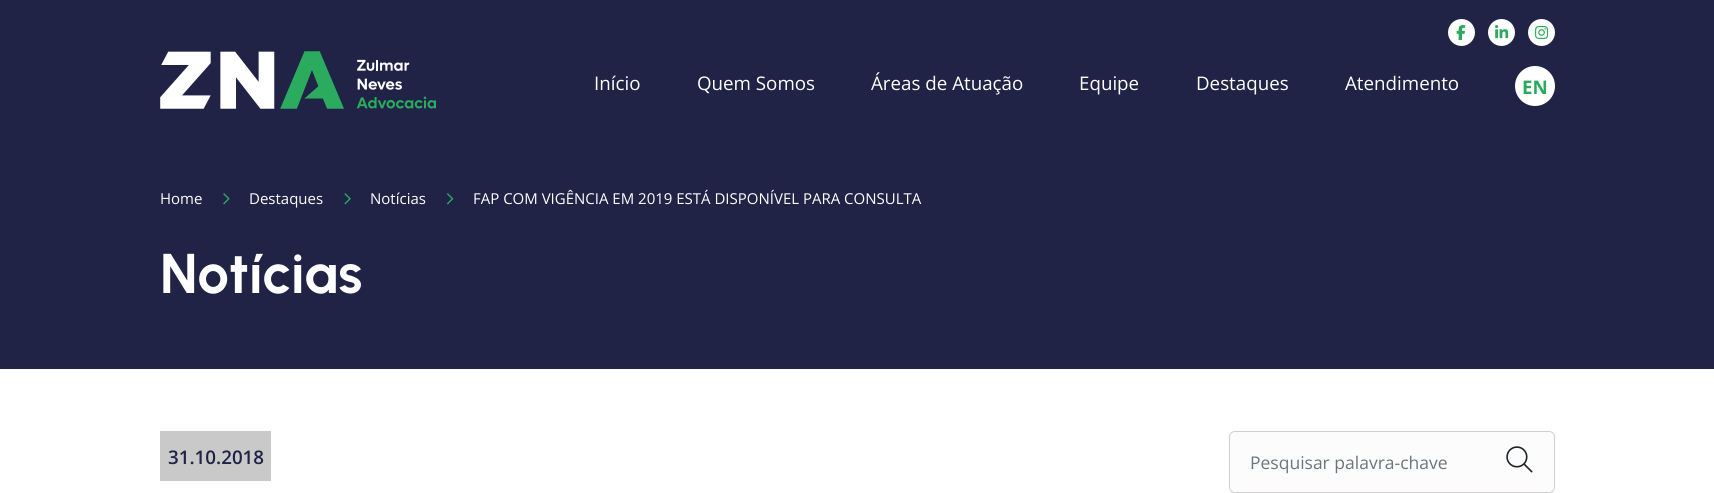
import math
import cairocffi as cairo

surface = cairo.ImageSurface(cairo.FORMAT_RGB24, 1714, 493)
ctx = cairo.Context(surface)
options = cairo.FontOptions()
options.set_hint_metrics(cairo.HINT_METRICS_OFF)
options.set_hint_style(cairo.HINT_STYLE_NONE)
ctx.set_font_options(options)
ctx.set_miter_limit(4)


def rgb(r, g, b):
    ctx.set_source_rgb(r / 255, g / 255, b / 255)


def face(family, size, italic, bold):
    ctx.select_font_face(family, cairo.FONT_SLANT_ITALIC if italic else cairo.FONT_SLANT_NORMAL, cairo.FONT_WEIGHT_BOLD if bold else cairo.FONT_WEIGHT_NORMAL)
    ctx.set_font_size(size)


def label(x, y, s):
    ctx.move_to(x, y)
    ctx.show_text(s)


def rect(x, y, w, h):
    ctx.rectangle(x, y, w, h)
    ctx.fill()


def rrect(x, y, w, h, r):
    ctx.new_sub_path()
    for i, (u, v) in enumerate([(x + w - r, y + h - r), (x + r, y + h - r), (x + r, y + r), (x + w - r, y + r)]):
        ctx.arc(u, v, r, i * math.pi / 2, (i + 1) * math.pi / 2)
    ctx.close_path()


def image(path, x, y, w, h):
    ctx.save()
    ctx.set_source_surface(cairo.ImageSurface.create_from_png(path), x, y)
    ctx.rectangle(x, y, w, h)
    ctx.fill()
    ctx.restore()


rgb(255, 255, 255)
ctx.paint()
rgb(32, 34, 70)
rect(0, 0, 1714, 369)
image('image0.png', 160, 51, 276, 58)
rgb(255, 255, 255)
ctx.arc(1461.5, 32.5, 13.5, 0, 2 * math.pi)
ctx.fill()
image('image1.png', 1456, 25, 10, 15)
ctx.arc(1501.5, 32.5, 13.5, 0, 2 * math.pi)
ctx.fill()
image('image2.png', 1495, 25, 14, 14)
ctx.arc(1541.5, 32.5, 13.5, 0, 2 * math.pi)
ctx.fill()
image('image3.png', 1535, 26, 14, 13)
face('Open Sans', 18.75, 0, 0)
label(594, 90, 'Início')
label(697, 90, 'Quem Somos')
label(871, 90, 'Áreas de Atuação')
label(1079, 90, 'Equipe')
label(1196, 90, 'Destaques')
label(1345, 90, 'Atendimento')
ctx.new_path()
ctx.arc(1535, 86, 20, 0, 2 * math.pi)
ctx.fill()
face('Open Sans', 18.75, 0, 1)
rgb(41, 170, 92)
label(1522, 94, 'EN')
face('Open Sans', 15, 0, 0)
rgb(255, 255, 255)
label(160, 204, 'Home')
image('image4.png', 223, 193, 7, 12)
label(249, 204, 'Destaques')
image('image5.png', 344, 193, 7, 12)
label(370, 204, 'Notícias')
image('image6.png', 446, 193, 8, 12)
label(473, 204, 'FAP COM VIGÊNCIA EM 2019 ESTÁ DISPONÍVEL PARA CONSULTA')
face('Urbanist', 56, 0, 1)
label(160, 293, 'Notícias')
rgb(201, 201, 201)
rect(160, 431, 111, 50)
face('Open Sans SemiBold', 18.75, 0, 0)
rgb(32, 34, 70)
label(168, 464, '31.10.2018')
rgb(252, 252, 252)
rrect(1229.5, 431.5, 325, 61, 5.5)
ctx.fill_preserve()
rgb(209, 207, 207)
ctx.set_line_width(1)
ctx.stroke()
face('Open Sans', 17.5, 0, 0)
rgb(108, 117, 125)
label(1250, 469, 'Pesquisar palavra-chave')
image('image7.png', 1506, 446, 27, 27)
surface.write_to_png('render.png')
